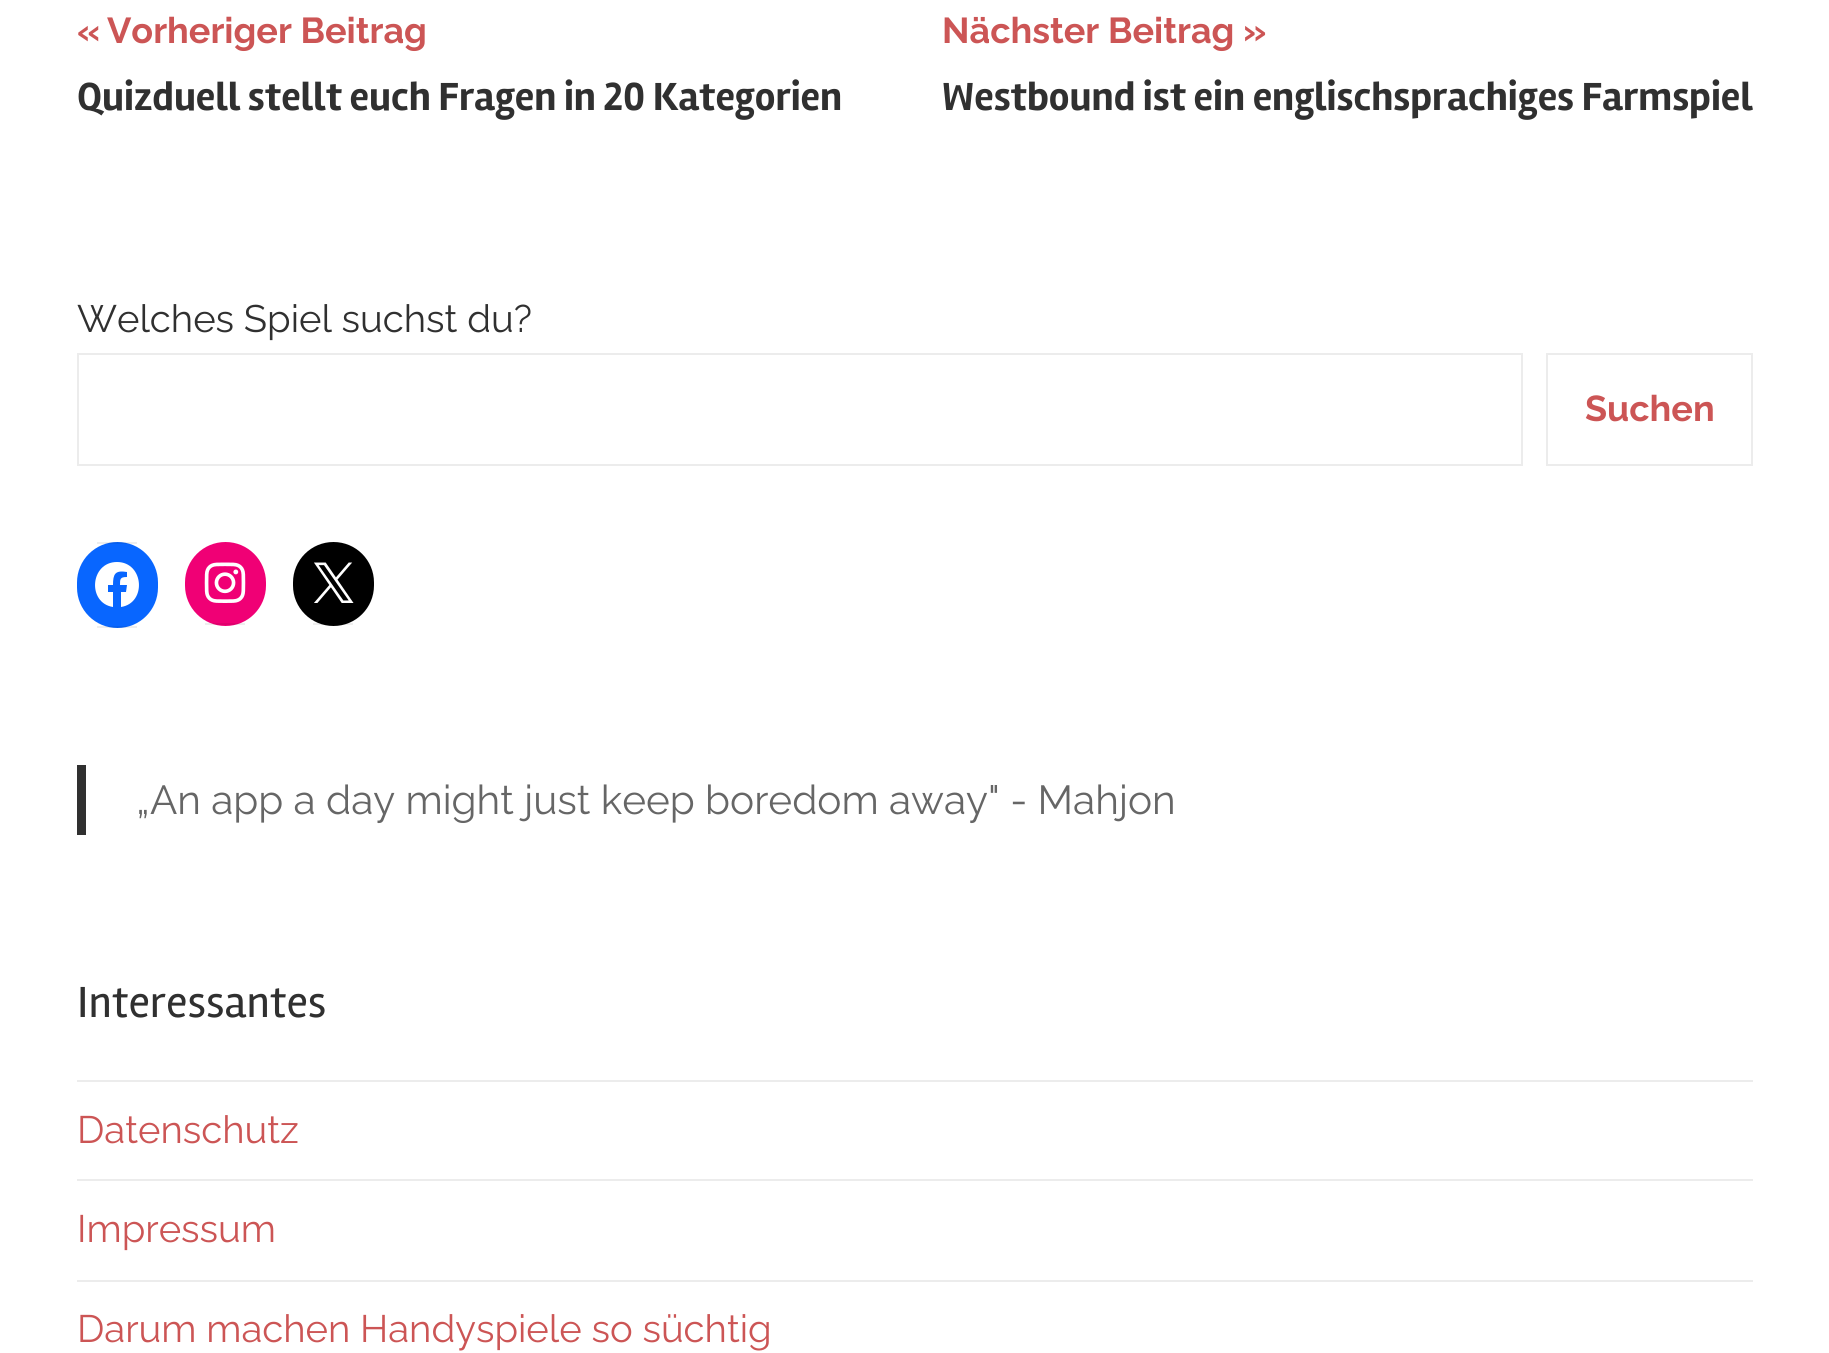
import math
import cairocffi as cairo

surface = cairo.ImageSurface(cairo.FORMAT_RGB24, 1829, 1353)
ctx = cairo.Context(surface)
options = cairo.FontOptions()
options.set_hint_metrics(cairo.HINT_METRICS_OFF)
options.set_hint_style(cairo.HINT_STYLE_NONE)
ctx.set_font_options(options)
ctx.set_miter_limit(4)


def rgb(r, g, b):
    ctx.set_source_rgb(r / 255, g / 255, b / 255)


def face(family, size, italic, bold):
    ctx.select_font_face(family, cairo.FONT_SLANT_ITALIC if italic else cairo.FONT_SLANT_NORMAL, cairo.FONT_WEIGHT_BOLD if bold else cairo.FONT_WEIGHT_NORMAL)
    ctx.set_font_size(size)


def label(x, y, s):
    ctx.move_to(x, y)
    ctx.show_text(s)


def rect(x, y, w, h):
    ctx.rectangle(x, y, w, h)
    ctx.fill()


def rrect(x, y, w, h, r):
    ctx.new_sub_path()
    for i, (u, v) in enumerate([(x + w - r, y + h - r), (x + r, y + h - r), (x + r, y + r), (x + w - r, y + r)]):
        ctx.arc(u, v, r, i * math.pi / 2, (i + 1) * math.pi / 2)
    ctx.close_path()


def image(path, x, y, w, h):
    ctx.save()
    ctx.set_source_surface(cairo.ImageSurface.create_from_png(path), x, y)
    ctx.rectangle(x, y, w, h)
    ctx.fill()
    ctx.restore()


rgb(255, 255, 255)
ctx.paint()
face('Raleway Thin', 36, 0, 0)
rgb(204, 85, 85)
label(77, 43, '«')
label(107, 43, 'Vorheriger Beitrag')
face('Rambla', 40.5, 0, 1)
rgb(48, 48, 48)
label(77, 110, 'Quizduell stellt euch Fragen in 20 Kategorien')
face('Raleway Thin', 36, 0, 0)
rgb(204, 85, 85)
label(942, 43, 'Nächster Beitrag')
label(1243, 43, '»')
face('Rambla', 40.5, 0, 1)
rgb(48, 48, 48)
label(942, 110, 'Westbound ist ein englischsprachiges Farmspiel')
face('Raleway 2 Thin', 38.25, 0, 0)
label(77, 332, 'Welches Spiel suchst du?')
ctx.rectangle(78, 354, 1444, 111)
rgb(236, 236, 236)
ctx.stroke()
ctx.rectangle(1547, 354, 205, 111)
ctx.stroke()
face('Raleway Thin', 36, 0, 0)
rgb(204, 85, 85)
label(1585, 421, 'Suchen')
rgb(8, 102, 255)
rrect(77, 542, 81, 86, 40.5)
ctx.fill()
ctx.set_source_rgba(0, 0, 0, 0.07)
rect(97, 542, 40, 2)
rect(97, 626, 40, 2)
rgb(255, 255, 255)
ctx.new_path()
ctx.move_to(117, 562)
ctx.curve_to(90, 562, 87, 603, 113, 607)
ctx.line_to(113, 592)
ctx.line_to(108, 592)
ctx.line_to(108, 585)
ctx.line_to(113, 585)
ctx.curve_to(113, 574, 115, 570, 127, 572)
ctx.line_to(127, 577)
ctx.curve_to(120, 577, 120, 579, 120, 585)
ctx.line_to(127, 585)
ctx.line_to(126, 592)
ctx.line_to(121, 592)
ctx.line_to(121, 607)
ctx.curve_to(147, 603, 144, 562, 117, 562)
ctx.close_path()
ctx.fill()
rgb(240, 0, 117)
rrect(185, 542, 81, 84, 40.5)
ctx.fill()
ctx.set_source_rgba(0, 0, 0, 0.07)
rect(205, 623, 40, 2)
image('image0.png', 204, 562, 42, 41)
rgb(0, 0, 0)
rrect(293, 542, 81, 84, 40.5)
ctx.fill()
ctx.set_source_rgba(0, 0, 0, 0.07)
rect(313, 623, 40, 2)
image('image1.png', 314, 562, 40, 41)
rgb(48, 48, 48)
rect(77, 765, 9, 70)
face('Raleway 2 Thin', 40.5, 0, 0)
rgb(102, 102, 102)
label(136, 814, '„An app a day might just keep boredom away" - Mahjon')
face('Rambla', 45, 0, 0)
rgb(48, 48, 48)
label(77, 1017, 'Interessantes')
rgb(236, 236, 236)
rect(77, 1080, 1676, 2)
rect(77, 1179, 1676, 2)
face('Raleway 2 Thin', 38.25, 0, 0)
rgb(204, 85, 85)
label(77, 1143, 'Datenschutz')
rgb(236, 236, 236)
rect(77, 1280, 1676, 2)
rgb(204, 85, 85)
label(77, 1242, 'Impressum')
label(77, 1342, 'Darum machen Handyspiele so süchtig')
surface.write_to_png('render.png')
